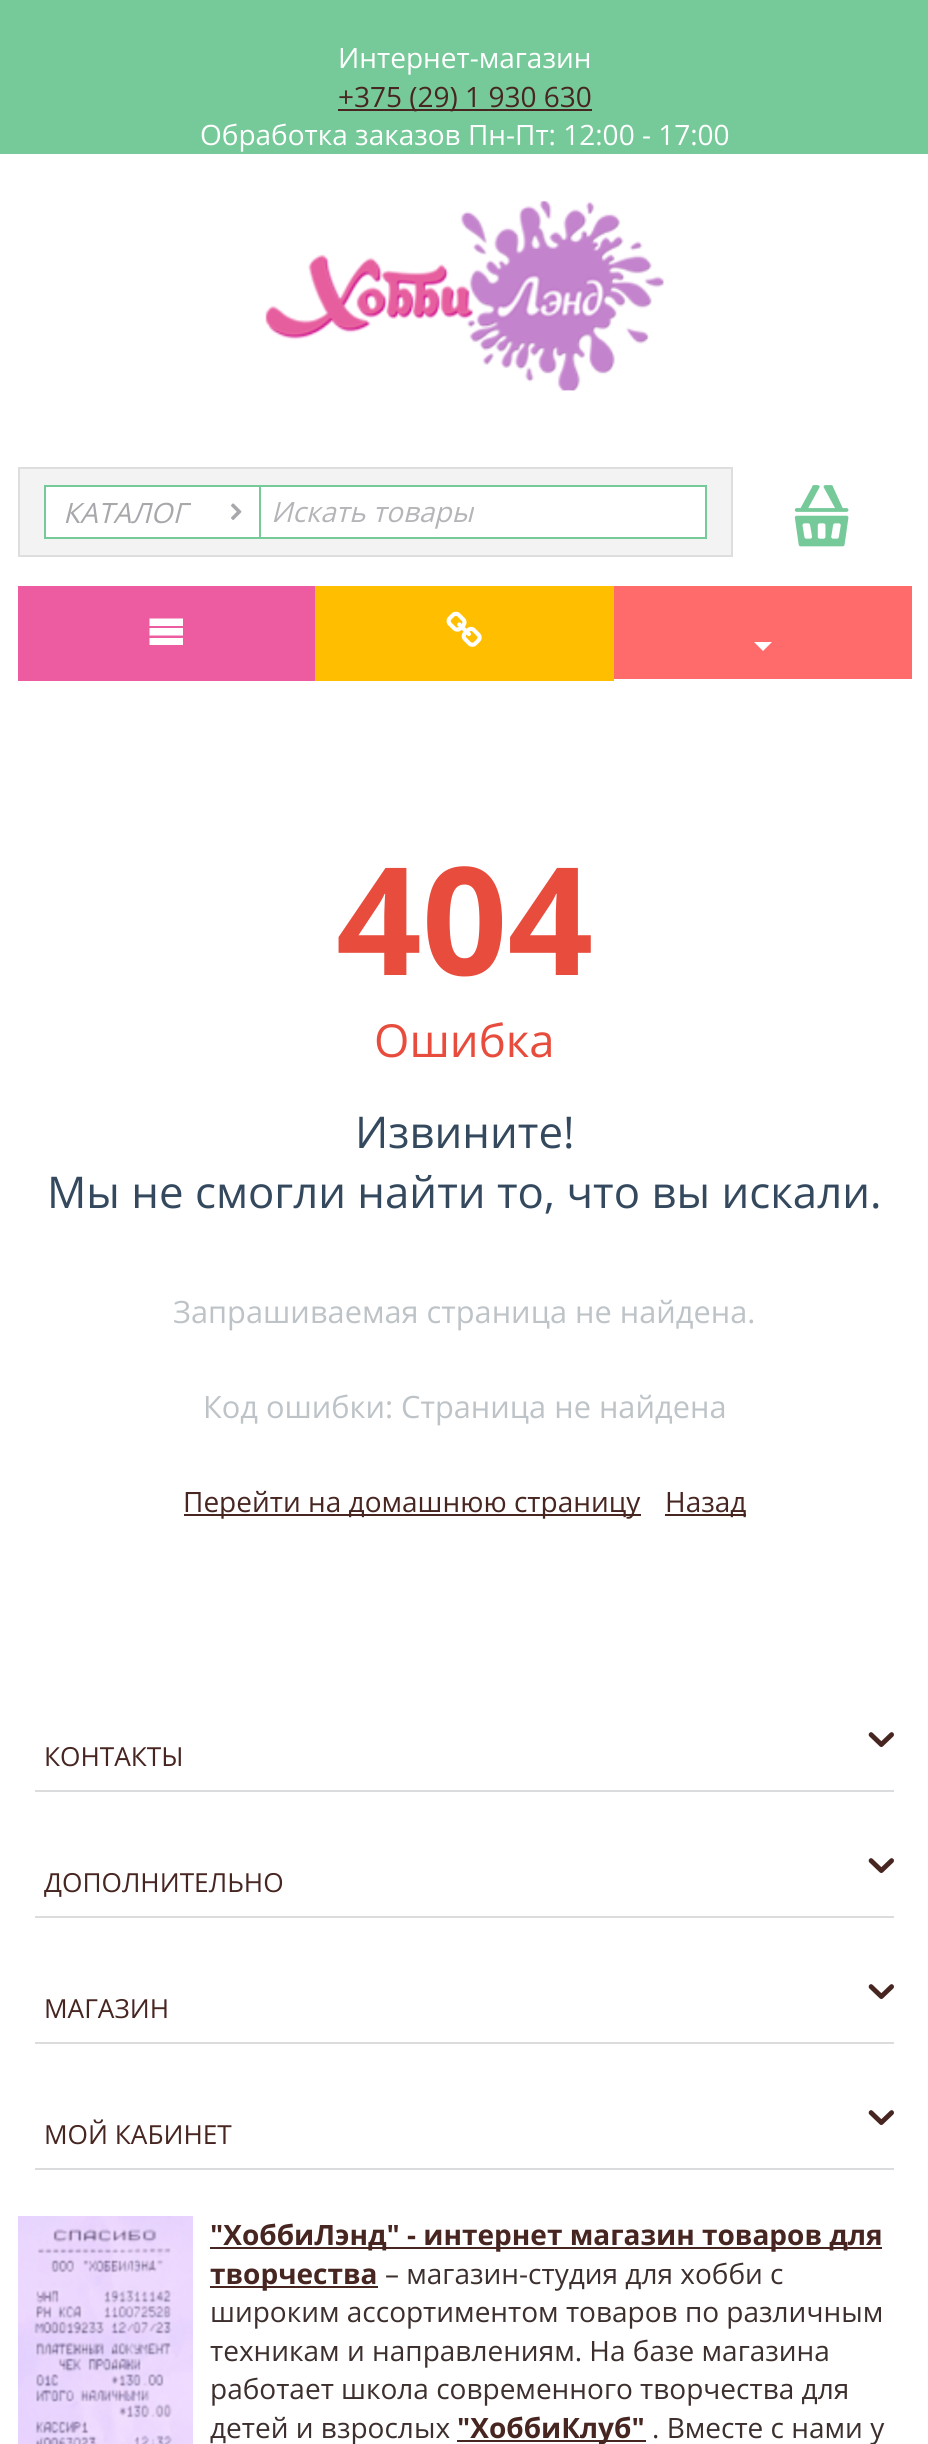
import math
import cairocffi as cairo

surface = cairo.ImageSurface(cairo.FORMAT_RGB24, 928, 2444)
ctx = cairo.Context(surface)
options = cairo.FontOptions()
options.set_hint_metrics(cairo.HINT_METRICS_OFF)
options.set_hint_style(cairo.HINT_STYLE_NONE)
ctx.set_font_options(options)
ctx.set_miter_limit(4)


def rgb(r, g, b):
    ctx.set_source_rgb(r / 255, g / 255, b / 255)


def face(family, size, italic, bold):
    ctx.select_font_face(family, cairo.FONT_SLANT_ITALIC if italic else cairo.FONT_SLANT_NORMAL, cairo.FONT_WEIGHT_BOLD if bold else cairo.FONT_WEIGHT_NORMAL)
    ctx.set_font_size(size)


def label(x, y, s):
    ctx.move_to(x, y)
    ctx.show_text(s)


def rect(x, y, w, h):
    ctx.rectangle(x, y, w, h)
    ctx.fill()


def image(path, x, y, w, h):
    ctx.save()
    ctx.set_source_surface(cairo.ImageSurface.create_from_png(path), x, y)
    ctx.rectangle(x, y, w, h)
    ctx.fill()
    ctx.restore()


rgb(255, 255, 255)
ctx.paint()
rgb(118, 201, 153)
rect(0, 0, 928, 154)
face('Open Sans', 28, 0, 0)
rgb(255, 255, 255)
label(338, 68, 'Интернет-магазин')
rgb(71, 37, 33)
rect(338, 109, 254, 2)
label(338, 107, '+375 (29) 1 930 630')
rgb(255, 255, 255)
label(200, 145, 'Обработка заказов Пн-Пт: 12:00 - 17:00')
image('image0.png', 265, 200, 399, 191)
rgb(243, 243, 243)
ctx.rectangle(19, 468, 713, 88)
ctx.fill_preserve()
rgb(222, 222, 222)
ctx.stroke()
rgb(255, 255, 255)
ctx.rectangle(45, 486, 661, 52)
ctx.fill_preserve()
rgb(118, 201, 153)
ctx.stroke()
rect(259, 487, 2, 50)
face('Open Sans', 28, 1, 0)
rgb(168, 168, 172)
label(63, 523, 'КАТАЛОГ')
image('image1.png', 231, 503, 11, 17)
rgb(181, 181, 185)
label(271, 522, 'Искать товары')
image('image2.png', 794, 485, 55, 62)
rgb(237, 92, 161)
rect(18, 586, 297, 95)
rgb(255, 255, 255)
ctx.new_path()
ctx.move_to(149.5, 618.5)
ctx.line_to(183, 618.5)
ctx.line_to(183, 626)
ctx.line_to(149.5, 626)
ctx.close_path()
ctx.move_to(149.5, 628)
ctx.line_to(183, 628)
ctx.line_to(183, 635.5)
ctx.line_to(149.5, 635.5)
ctx.close_path()
ctx.move_to(149.5, 638)
ctx.line_to(183, 638)
ctx.line_to(183, 645)
ctx.line_to(149.5, 645)
ctx.close_path()
ctx.fill()
rgb(255, 191, 0)
rect(315, 586, 299, 95)
image('image3.png', 446, 611, 36, 36)
rgb(255, 107, 107)
rect(614, 586, 298, 93)
rgb(255, 255, 255)
ctx.new_path()
ctx.move_to(763, 651)
ctx.line_to(754, 642)
ctx.line_to(772, 642)
ctx.close_path()
ctx.fill()
face('Open Sans', 150, 0, 1)
rgb(231, 76, 60)
label(336, 975, '404')
face('Open Sans', 45.5, 0, 0)
label(374, 1057, 'Ошибка')
face('Open Sans', 43.75, 0, 0)
rgb(52, 73, 94)
label(355, 1148, 'Извините!')
label(47, 1208, 'Мы не смогли найти то, что вы искали.')
face('Open Sans', 30.75, 0, 0)
rgb(189, 195, 199)
label(173, 1323, 'Запрашиваемая страница не найдена.')
label(203, 1418, 'Код ошибки: Страница не найдена')
rgb(71, 37, 33)
rect(184, 1514, 457, 2)
face('Open Sans', 28, 0, 0)
label(183, 1512, 'Перейти на домашнюю страницу')
rect(665, 1514, 81, 2)
label(665, 1512, 'Назад')
rgb(218, 220, 222)
rect(35, 1790, 859, 2)
image('image4.png', 868, 1732, 26, 15)
face('Open Sans', 26.25, 0, 0)
rgb(71, 37, 33)
label(44, 1766, 'КОНТАКТЫ')
rgb(218, 220, 222)
rect(35, 1916, 859, 2)
image('image4.png', 868, 1858, 26, 15)
rgb(71, 37, 33)
label(44, 1892, 'ДОПОЛНИТЕЛЬНО')
rgb(218, 220, 222)
rect(35, 2042, 859, 2)
image('image4.png', 868, 1984, 26, 15)
rgb(71, 37, 33)
label(44, 2018, 'МАГАЗИН')
rgb(218, 220, 222)
rect(35, 2168, 859, 2)
image('image4.png', 868, 2110, 26, 15)
rgb(71, 37, 33)
label(44, 2144, 'МОЙ КАБИНЕТ')
image('image5.png', 18, 2216, 175, 228)
rect(210, 2247, 672, 2)
face('Open Sans', 28, 0, 1)
label(210, 2245, '"ХоббиЛэнд" - интернет магазин товаров для')
rect(210, 2286, 168, 2)
label(210, 2284, 'творчества')
face('Open Sans', 28, 0, 0)
rgb(60, 47, 45)
label(385, 2284, '– магазин-студия для хобби с')
label(210, 2322, 'широким ассортиментом товаров по различным')
label(210, 2361, 'техникам и направлениям. На базе магазина')
label(210, 2399, 'работает школа современного творчества для')
label(210, 2438, 'детей и взрослых')
rgb(71, 37, 33)
rect(457, 2440, 189, 2)
face('Open Sans', 28, 0, 1)
label(457, 2438, '"ХоббиКлуб"')
face('Open Sans', 28, 0, 0)
rgb(60, 47, 45)
label(652, 2438, '. Вместе с нами у')
surface.write_to_png('render.png')
